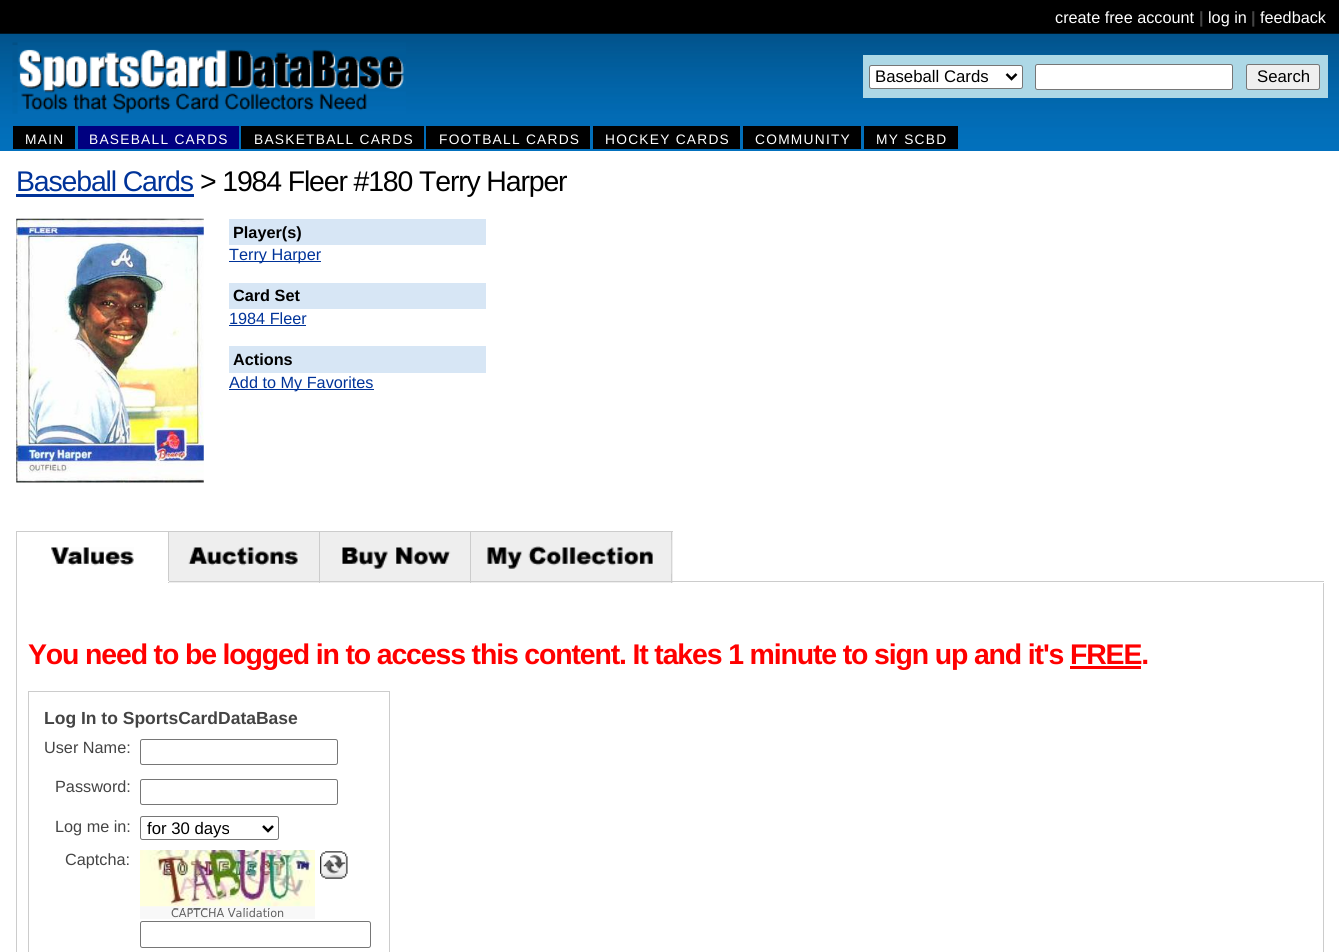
import math
import cairocffi as cairo

surface = cairo.ImageSurface(cairo.FORMAT_RGB24, 1339, 952)
ctx = cairo.Context(surface)
options = cairo.FontOptions()
options.set_hint_metrics(cairo.HINT_METRICS_OFF)
options.set_hint_style(cairo.HINT_STYLE_NONE)
ctx.set_font_options(options)
ctx.set_miter_limit(4)


def rgb(r, g, b):
    ctx.set_source_rgb(r / 255, g / 255, b / 255)


def face(family, size, italic, bold):
    ctx.select_font_face(family, cairo.FONT_SLANT_ITALIC if italic else cairo.FONT_SLANT_NORMAL, cairo.FONT_WEIGHT_BOLD if bold else cairo.FONT_WEIGHT_NORMAL)
    ctx.set_font_size(size)


def label(x, y, s):
    ctx.move_to(x, y)
    ctx.show_text(s)


def tracked(x, y, s, letter, word):
    ctx.move_to(x, y)
    for ch in s:
        ctx.show_text(ch)
        ctx.rel_move_to(letter + word * (ch == ' '), 0)


def rect(x, y, w, h):
    ctx.rectangle(x, y, w, h)
    ctx.fill()


def rrect(x, y, w, h, r):
    ctx.new_sub_path()
    for i, (u, v) in enumerate([(x + w - r, y + h - r), (x + r, y + h - r), (x + r, y + r), (x + w - r, y + r)]):
        ctx.arc(u, v, r, i * math.pi / 2, (i + 1) * math.pi / 2)
    ctx.close_path()


def image(path, x, y, w, h):
    ctx.save()
    ctx.set_source_surface(cairo.ImageSurface.create_from_png(path), x, y)
    ctx.rectangle(x, y, w, h)
    ctx.fill()
    ctx.restore()


rgb(0, 0, 0)
ctx.paint()
face('Liberation Sans', 16.25, 0, 0)
rgb(255, 255, 255)
label(1055, 23, 'create free account')
face('Liberation Sans', 16.25, 0, 1)
rgb(68, 68, 68)
label(1199, 23, '|')
face('Liberation Sans', 16.25, 0, 0)
rgb(255, 255, 255)
label(1208, 23, 'log in')
face('Liberation Sans', 16.25, 0, 1)
rgb(68, 68, 68)
label(1251, 23, '|')
face('Liberation Sans', 16.25, 0, 0)
rgb(255, 255, 255)
label(1260, 23, 'feedback')
image('image0.png', 0, 33, 1339, 118)
image('image1.png', 12, 42, 394, 72)
rgb(173, 216, 230)
rect(863, 55, 465, 43)
rgb(255, 255, 255)
rrect(869.5, 65.5, 153, 23, 2)
ctx.fill_preserve()
rgb(118, 118, 118)
ctx.set_line_width(1)
ctx.stroke()
ctx.new_path()
ctx.move_to(1006.5, 74)
ctx.line_to(1011.5, 79)
ctx.line_to(1016.5, 74)
rgb(0, 0, 0)
ctx.set_line_width(2.5)
ctx.stroke()
face('Liberation Sans', 16.75, 0, 0)
label(875, 82, 'Baseball Cards')
rgb(255, 255, 255)
rrect(1035.5, 64.5, 197, 25, 2)
ctx.fill_preserve()
rgb(118, 118, 118)
ctx.set_line_width(1)
ctx.stroke()
rgb(239, 239, 239)
rrect(1246.5, 64.5, 73, 25, 2)
ctx.fill_preserve()
rgb(118, 118, 118)
ctx.stroke()
rgb(0, 0, 0)
label(1257, 82, 'Search')
rect(13, 126, 62, 23)
face('Liberation Sans', 13.75, 0, 0)
rgb(255, 255, 255)
tracked(25, 144, 'MAIN', 1.25, 0)
rgb(0, 0, 128)
rect(78, 126, 161, 23)
rgb(255, 255, 255)
tracked(89, 144, 'BASEBALL CARDS', 1.25, 0)
rgb(0, 0, 0)
rect(241, 126, 183, 23)
rgb(255, 255, 255)
tracked(254, 144, 'BASKETBALL CARDS', 1.25, 0)
rgb(0, 0, 0)
rect(426, 126, 164, 23)
rgb(255, 255, 255)
tracked(439, 144, 'FOOTBALL CARDS', 1.25, 0)
rgb(0, 0, 0)
rect(593, 126, 147, 23)
rgb(255, 255, 255)
tracked(605, 144, 'HOCKEY CARDS', 1.25, 0)
rgb(0, 0, 0)
rect(743, 126, 118, 23)
rgb(255, 255, 255)
tracked(755, 144, 'COMMUNITY', 1.25, 0)
rgb(0, 0, 0)
rect(864, 126, 94, 23)
rgb(255, 255, 255)
tracked(876, 144, 'MY SCBD', 1.25, 0)
rect(0, 151, 1339, 801)
face('Liberation Sans', 28.45, 0, 0)
rgb(0, 51, 153)
tracked(16, 191, 'Baseball Cards', -1.15, 0)
rect(16, 194, 178, 3)
rgb(0, 0, 0)
tracked(200, 191, '> 1984 Fleer #180 Terry Harper', -1.15, 0)
image('image2.png', 16, 218, 188, 265)
rgb(215, 230, 245)
rect(229, 219, 257, 26)
face('Liberation Sans', 16.25, 0, 1)
rgb(0, 0, 0)
label(233, 238, 'Player(s)')
rgb(0, 51, 153)
rect(229, 261, 92, 1)
face('Liberation Sans', 16.25, 0, 0)
label(229, 260, 'Terry Harper')
rgb(215, 230, 245)
rect(229, 283, 257, 26)
face('Liberation Sans', 16.25, 0, 1)
rgb(0, 0, 0)
label(233, 301, 'Card Set')
face('Liberation Sans', 16.25, 0, 0)
rgb(0, 51, 153)
label(229, 324, '1984 Fleer')
rect(229, 325, 77, 1)
rgb(215, 230, 245)
rect(229, 346, 257, 27)
face('Liberation Sans', 16.25, 0, 1)
rgb(0, 0, 0)
label(233, 365, 'Actions')
rgb(0, 51, 153)
rect(229, 389, 145, 1)
face('Liberation Sans', 16.25, 0, 0)
label(229, 388, 'Add to My Favorites')
rgb(204, 204, 204)
rect(16, 531, 657, 1)
rect(168, 531, 1, 52)
rgb(255, 255, 255)
rect(168, 581, 1, 1)
rgb(204, 204, 204)
rect(16, 531, 1, 421)
image('image3.png', 51, 547, 83, 19)
rgb(238, 238, 238)
rect(169, 532, 150, 51)
rgb(204, 204, 204)
rect(319, 531, 1, 52)
rect(169, 581, 151, 1)
image('image4.png', 188, 547, 110, 19)
rgb(238, 238, 238)
rect(320, 532, 150, 51)
rgb(204, 204, 204)
rect(470, 531, 1, 52)
rect(320, 581, 151, 1)
image('image5.png', 342, 547, 109, 22)
rgb(238, 238, 238)
rect(471, 532, 202, 51)
rgb(204, 204, 204)
rect(671, 531, 1, 52)
rect(471, 581, 853, 1)
image('image6.png', 487, 540, 185, 34)
rect(1323, 583, 1, 369)
face('Liberation Sans', 28.45, 0, 1)
rgb(255, 0, 0)
tracked(28, 664, 'You need to be logged in to access this content. It takes 1 minute to sign up and it\'s FREE.', -1.15, 0)
rect(1070, 666, 71, 3)
ctx.rectangle(28.5, 691.5, 361, 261)
rgb(204, 204, 204)
ctx.stroke()
face('Liberation Sans', 17.5, 0, 1)
rgb(68, 68, 68)
label(44, 724, 'Log In to SportsCardDataBase')
face('Liberation Sans', 16.25, 0, 0)
label(44, 753, 'User Name:')
rrect(140.5, 739.5, 197, 25, 2)
rgb(118, 118, 118)
ctx.stroke()
rgb(68, 68, 68)
label(55, 792, 'Password:')
rrect(140.5, 779.5, 197, 25, 2)
rgb(118, 118, 118)
ctx.stroke()
rgb(68, 68, 68)
label(55, 832, 'Log me in:')
rrect(140.5, 816.5, 138, 23, 2)
rgb(118, 118, 118)
ctx.stroke()
ctx.new_path()
ctx.move_to(263, 826)
ctx.line_to(268, 831)
ctx.line_to(273, 826)
rgb(0, 0, 0)
ctx.set_line_width(2.5)
ctx.stroke()
face('Liberation Sans', 16.75, 0, 0)
label(147, 834, 'for 30 days')
face('Liberation Sans', 16.25, 0, 0)
rgb(68, 68, 68)
label(65, 865, 'Captcha:')
image('image7.png', 320, 851, 28, 28)
rgb(248, 248, 248)
rect(140, 906, 175, 13)
image('image8.png', 140, 850, 175, 59)
face('DejaVu Sans', 11.25, 0, 0)
rgb(96, 96, 96)
label(171, 917, 'CAPTCHA Validation')
rrect(140.5, 921.5, 230, 26, 2)
rgb(118, 118, 118)
ctx.set_line_width(1)
ctx.stroke()
surface.write_to_png('render.png')
